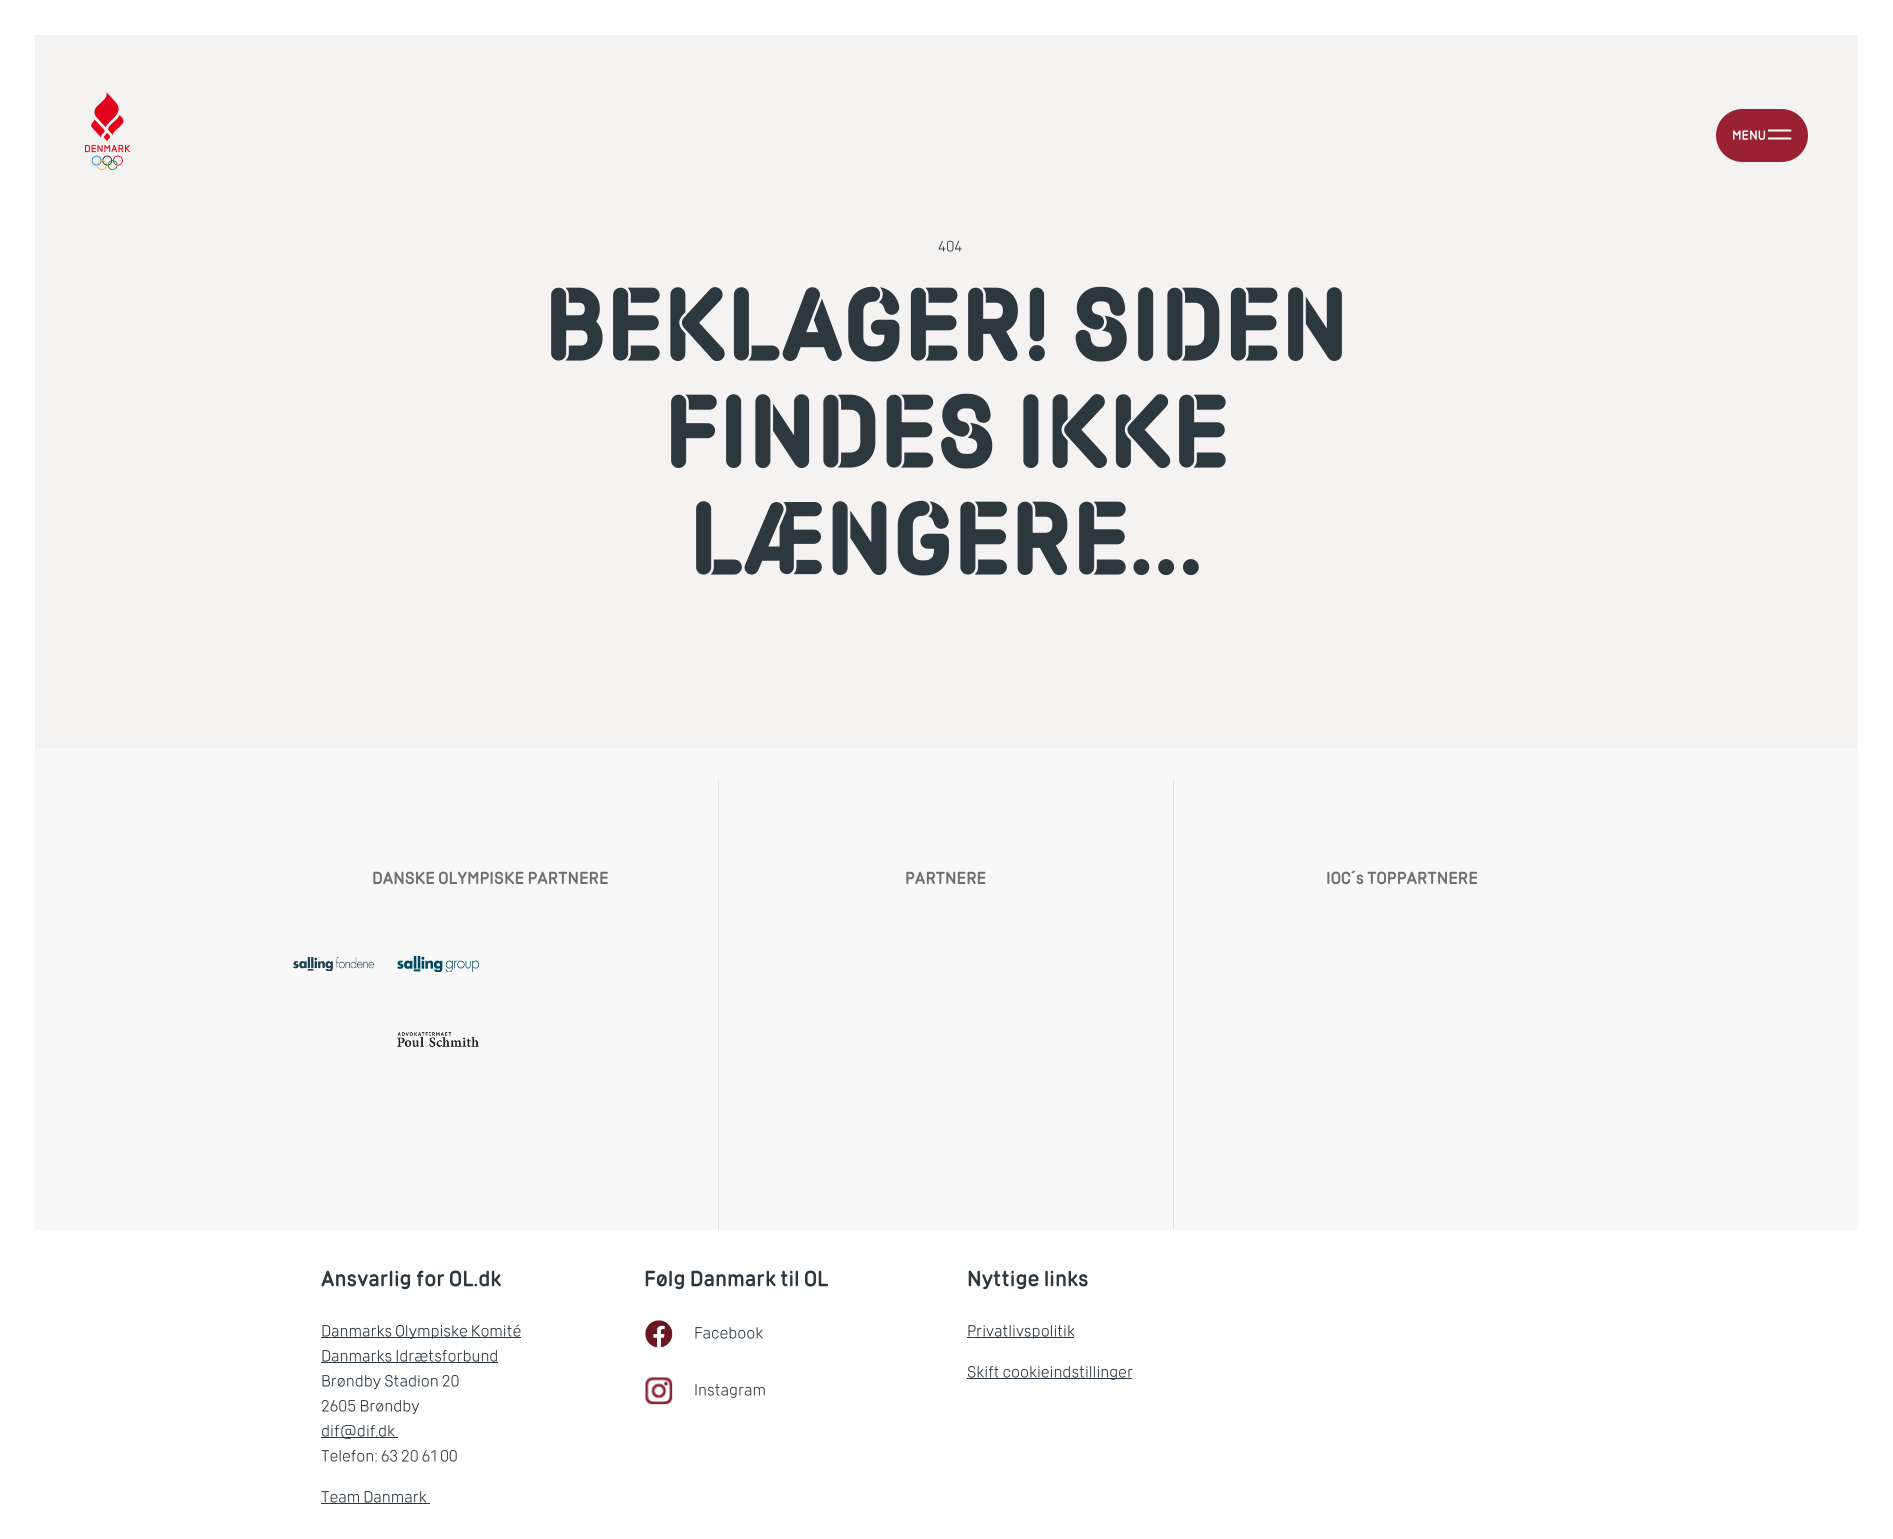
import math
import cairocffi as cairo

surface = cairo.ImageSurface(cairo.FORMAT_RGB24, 1893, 1539)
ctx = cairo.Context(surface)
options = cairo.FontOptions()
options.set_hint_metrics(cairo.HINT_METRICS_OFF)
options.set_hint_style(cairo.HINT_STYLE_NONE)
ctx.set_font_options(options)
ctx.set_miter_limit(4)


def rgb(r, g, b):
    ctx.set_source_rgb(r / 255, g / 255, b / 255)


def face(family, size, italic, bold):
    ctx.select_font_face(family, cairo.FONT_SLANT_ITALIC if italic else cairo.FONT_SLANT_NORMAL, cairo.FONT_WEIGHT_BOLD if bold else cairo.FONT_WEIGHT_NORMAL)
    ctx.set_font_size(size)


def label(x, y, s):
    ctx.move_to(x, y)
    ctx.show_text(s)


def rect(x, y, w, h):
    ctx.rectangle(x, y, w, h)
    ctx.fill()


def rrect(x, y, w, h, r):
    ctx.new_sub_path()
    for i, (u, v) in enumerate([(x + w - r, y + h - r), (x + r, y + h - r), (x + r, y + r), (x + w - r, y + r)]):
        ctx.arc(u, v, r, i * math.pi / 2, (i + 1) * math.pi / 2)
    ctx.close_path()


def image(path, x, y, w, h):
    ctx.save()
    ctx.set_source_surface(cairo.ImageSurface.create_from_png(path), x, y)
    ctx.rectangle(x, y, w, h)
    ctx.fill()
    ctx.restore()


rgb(245, 242, 242)
ctx.paint()
rgb(255, 255, 255)
rect(0, 0, 1858, 35)
rect(1858, 0, 35, 1504)
rect(0, 35, 35, 1469)
image('image0.png', 85, 92, 45, 78)
rgb(153, 33, 50)
rrect(1716, 109, 92, 53, 26.5)
ctx.fill()
face('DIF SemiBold', 12, 0, 0)
rgb(255, 255, 255)
label(1732, 139, 'MENU')
image('image1.png', 1768, 129, 24, 11)
face('DIF', 15, 0, 0)
rgb(44, 55, 62)
label(938, 251, '404')
face('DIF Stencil', 89, 0, 1)
label(544, 353, 'BEKLAGER! SIDEN')
label(664, 460, 'FINDES IKKE')
label(689, 567, 'LÆNGERE...')
rgb(248, 248, 248)
rect(35, 748, 1823, 482)
rgb(228, 225, 225)
rect(718, 780, 1, 450)
face('DIF SemiBold', 15.75, 0, 0)
rgb(112, 111, 111)
label(372, 883, 'DANSKE OLYMPISKE PARTNERE')
image('image2.png', 293, 957, 81, 14)
image('image3.png', 397, 956, 82, 16)
image('image4.png', 397, 1032, 82, 16)
rgb(228, 225, 225)
rect(1173, 780, 1, 450)
rgb(112, 111, 111)
label(905, 883, 'PARTNERE')
label(1326, 883, 'IOC´s TOPPARTNERE')
rgb(255, 255, 255)
rect(35, 1230, 1823, 274)
face('DIF SemiBold', 20, 0, 0)
rgb(44, 55, 62)
label(321, 1285, 'Ansvarlig for OL.dk')
rect(321, 1337, 200, 1)
face('DIF', 16, 0, 0)
label(321, 1336, 'Danmarks Olympiske Komité')
label(321, 1361, 'Danmarks Idrætsforbund')
rect(321, 1362, 177, 1)
label(321, 1386, 'Brøndby Stadion 20')
label(321, 1411, '2605 Brøndby')
rect(321, 1437, 77, 1)
label(321, 1436, 'dif@dif.dk')
label(321, 1461, 'Telefon: 63 20 61 00')
label(321, 1502, 'Team Danmark')
rect(321, 1503, 109, 1)
face('DIF SemiBold', 20, 0, 0)
label(644, 1285, 'Følg Danmark til OL')
image('image5.png', 645, 1320, 28, 28)
face('DIF', 16, 0, 0)
label(694, 1338, 'Facebook')
image('image6.png', 645, 1377, 28, 28)
label(694, 1395, 'Instagram')
face('DIF SemiBold', 20, 0, 0)
label(967, 1285, 'Nyttige links')
rect(967, 1337, 107, 1)
face('DIF', 16, 0, 0)
label(967, 1336, 'Privatlivspolitik')
rect(967, 1378, 165, 1)
label(967, 1377, 'Skift cookieindstillinger')
rgb(255, 255, 255)
rect(0, 1504, 1893, 35)
surface.write_to_png('render.png')
